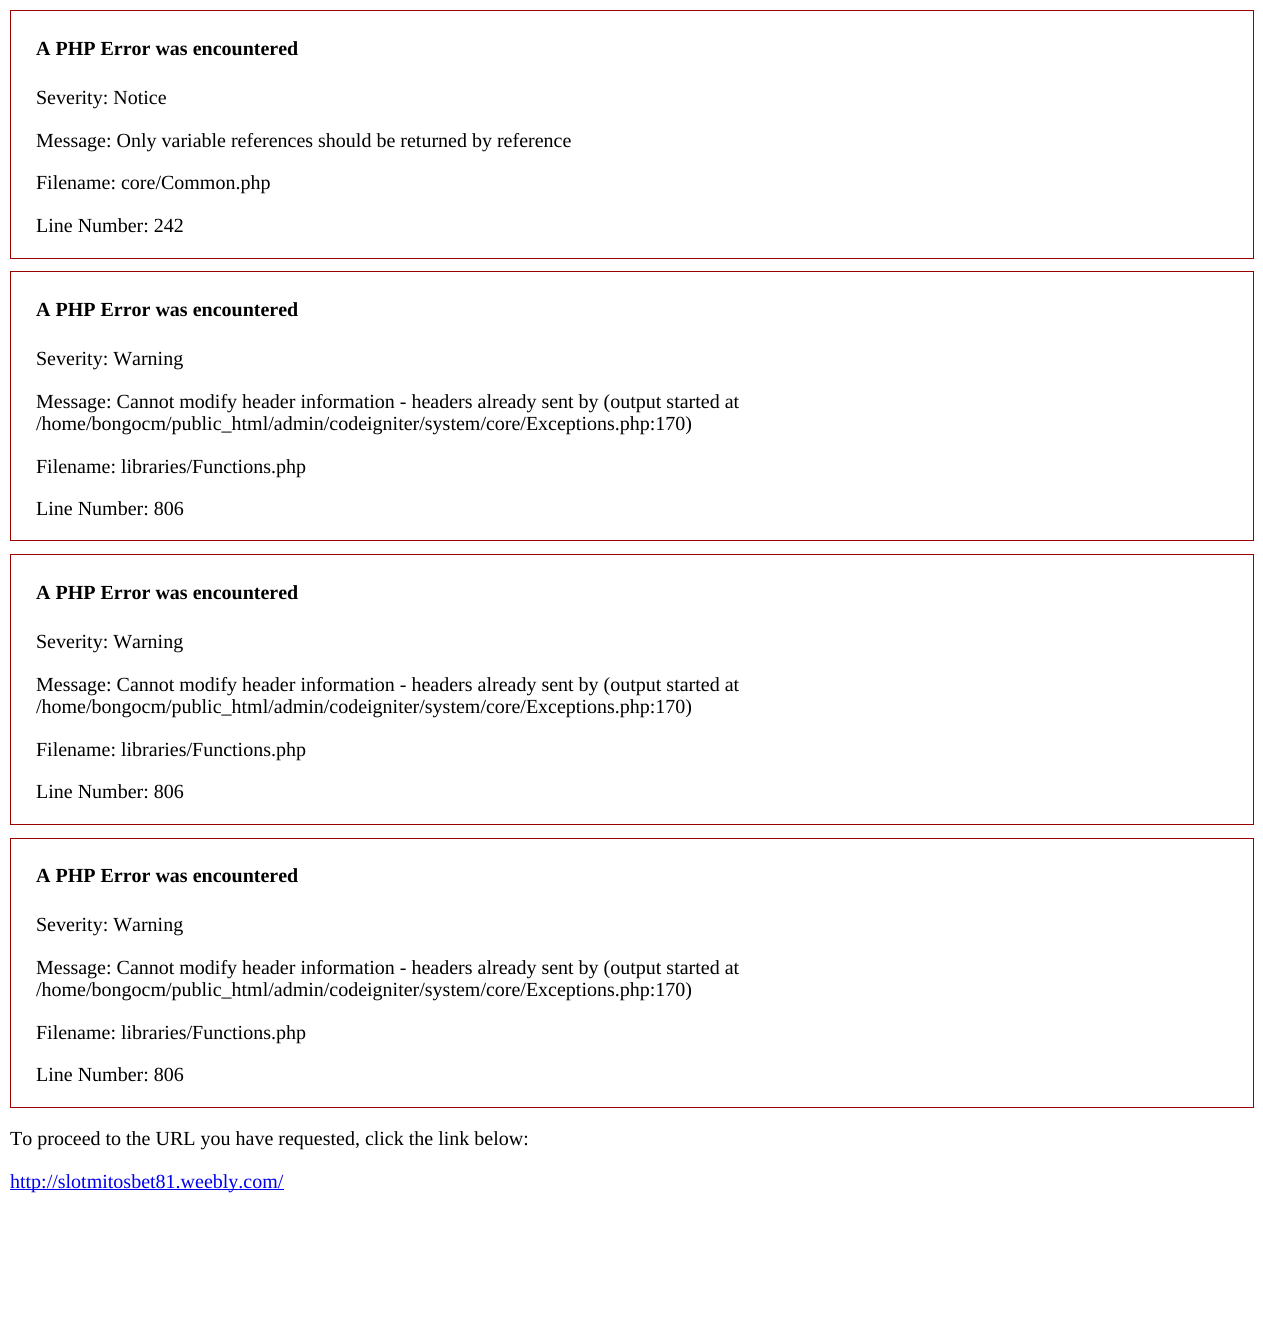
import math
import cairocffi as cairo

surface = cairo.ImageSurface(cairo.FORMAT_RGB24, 1263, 1326)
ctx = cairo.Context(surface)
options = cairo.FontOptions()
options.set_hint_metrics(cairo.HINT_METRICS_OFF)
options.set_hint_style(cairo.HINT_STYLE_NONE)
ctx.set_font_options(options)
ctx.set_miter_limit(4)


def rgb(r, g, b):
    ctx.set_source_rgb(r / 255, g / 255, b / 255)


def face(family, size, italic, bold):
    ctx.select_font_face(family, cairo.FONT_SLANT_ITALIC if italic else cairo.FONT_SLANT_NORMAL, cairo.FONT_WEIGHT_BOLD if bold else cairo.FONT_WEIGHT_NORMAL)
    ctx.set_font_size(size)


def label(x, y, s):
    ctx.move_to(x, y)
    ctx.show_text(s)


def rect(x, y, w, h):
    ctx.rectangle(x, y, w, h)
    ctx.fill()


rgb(255, 255, 255)
ctx.paint()
ctx.rectangle(10.5, 10.5, 1243, 248)
rgb(153, 0, 0)
ctx.set_line_width(1)
ctx.stroke()
face('Liberation Serif', 20, 0, 1)
rgb(0, 0, 0)
label(36, 55, 'A PHP Error was encountered')
face('Liberation Serif', 20, 0, 0)
label(36, 104, 'Severity: Notice')
label(36, 147, 'Message: Only variable references should be returned by reference')
label(36, 189, 'Filename: core/Common.php')
label(36, 232, 'Line Number: 242')
ctx.rectangle(10.5, 271.5, 1243, 269)
rgb(153, 0, 0)
ctx.stroke()
face('Liberation Serif', 20, 0, 1)
rgb(0, 0, 0)
label(36, 316, 'A PHP Error was encountered')
face('Liberation Serif', 20, 0, 0)
label(36, 365, 'Severity: Warning')
label(36, 408, 'Message: Cannot modify header information - headers already sent by (output started at')
label(36, 430, '/home/bongocm/public_html/admin/codeigniter/system/core/Exceptions.php:170)')
label(36, 473, 'Filename: libraries/Functions.php')
label(36, 515, 'Line Number: 806')
ctx.rectangle(10.5, 554.5, 1243, 270)
rgb(153, 0, 0)
ctx.stroke()
face('Liberation Serif', 20, 0, 1)
rgb(0, 0, 0)
label(36, 599, 'A PHP Error was encountered')
face('Liberation Serif', 20, 0, 0)
label(36, 648, 'Severity: Warning')
label(36, 691, 'Message: Cannot modify header information - headers already sent by (output started at')
label(36, 713, '/home/bongocm/public_html/admin/codeigniter/system/core/Exceptions.php:170)')
label(36, 756, 'Filename: libraries/Functions.php')
label(36, 798, 'Line Number: 806')
ctx.rectangle(10.5, 838.5, 1243, 269)
rgb(153, 0, 0)
ctx.stroke()
face('Liberation Serif', 20, 0, 1)
rgb(0, 0, 0)
label(36, 882, 'A PHP Error was encountered')
face('Liberation Serif', 20, 0, 0)
label(36, 931, 'Severity: Warning')
label(36, 974, 'Message: Cannot modify header information - headers already sent by (output started at')
label(36, 996, '/home/bongocm/public_html/admin/codeigniter/system/core/Exceptions.php:170)')
label(36, 1039, 'Filename: libraries/Functions.php')
label(36, 1081, 'Line Number: 806')
label(10, 1145, 'To proceed to the URL you have requested, click the link below:')
rgb(0, 0, 238)
rect(10, 1189, 274, 1)
label(10, 1188, 'http://slotmitosbet81.weebly.com/')
surface.write_to_png('render.png')
